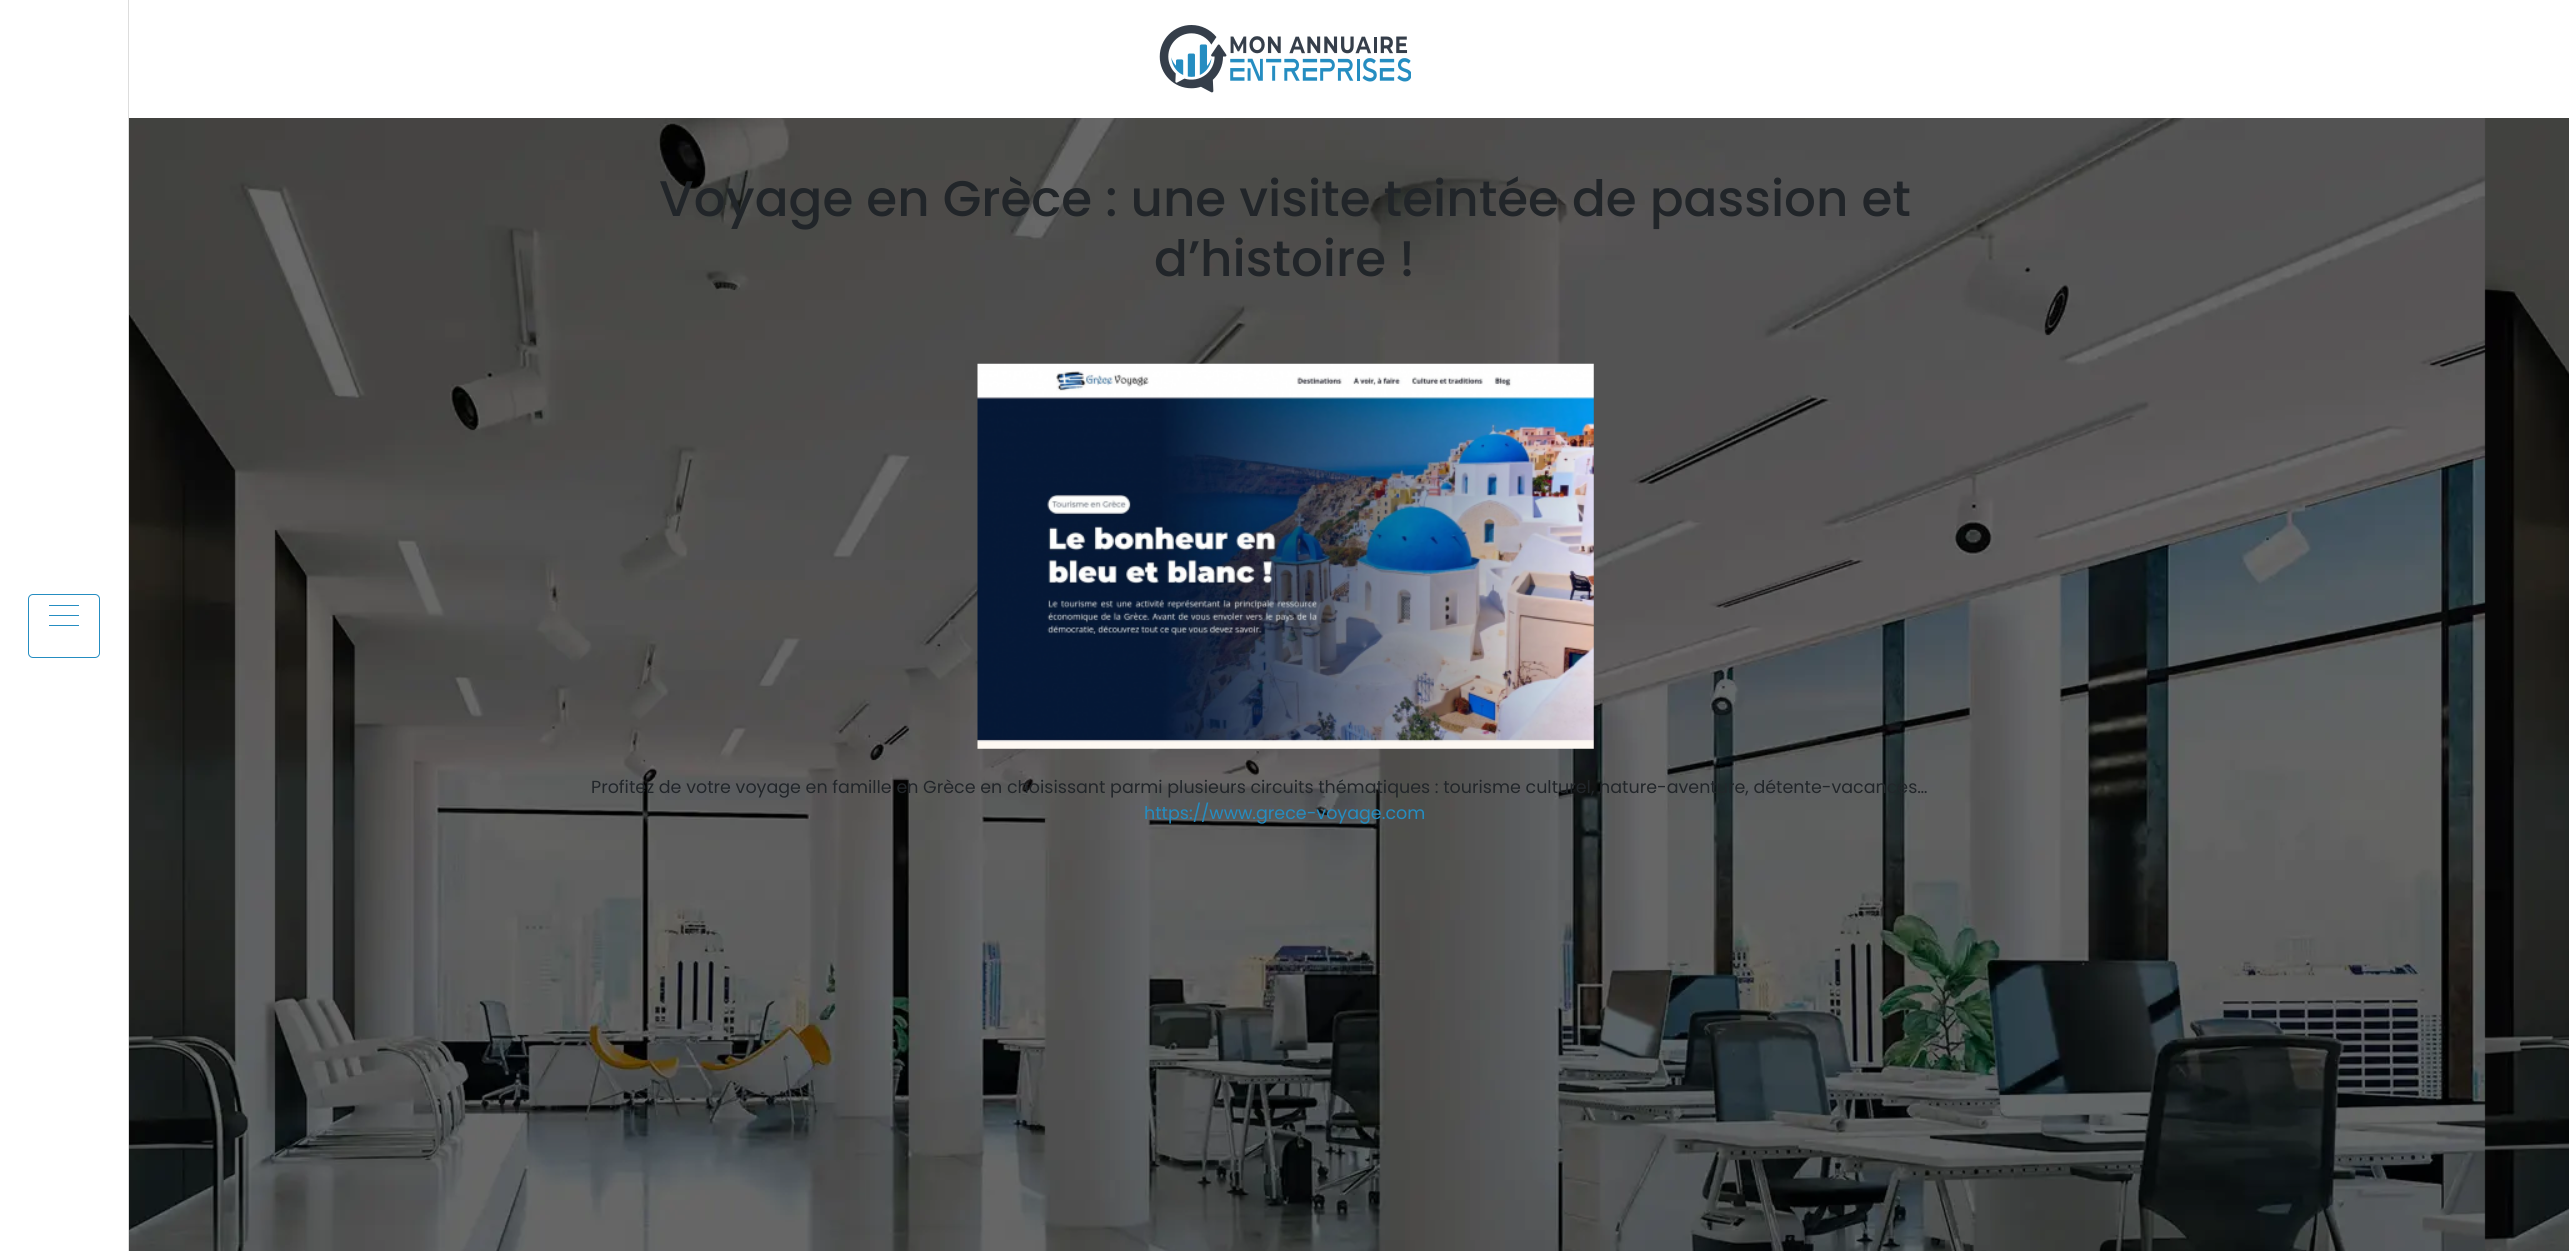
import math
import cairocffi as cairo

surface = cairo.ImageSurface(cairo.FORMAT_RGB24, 2569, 1251)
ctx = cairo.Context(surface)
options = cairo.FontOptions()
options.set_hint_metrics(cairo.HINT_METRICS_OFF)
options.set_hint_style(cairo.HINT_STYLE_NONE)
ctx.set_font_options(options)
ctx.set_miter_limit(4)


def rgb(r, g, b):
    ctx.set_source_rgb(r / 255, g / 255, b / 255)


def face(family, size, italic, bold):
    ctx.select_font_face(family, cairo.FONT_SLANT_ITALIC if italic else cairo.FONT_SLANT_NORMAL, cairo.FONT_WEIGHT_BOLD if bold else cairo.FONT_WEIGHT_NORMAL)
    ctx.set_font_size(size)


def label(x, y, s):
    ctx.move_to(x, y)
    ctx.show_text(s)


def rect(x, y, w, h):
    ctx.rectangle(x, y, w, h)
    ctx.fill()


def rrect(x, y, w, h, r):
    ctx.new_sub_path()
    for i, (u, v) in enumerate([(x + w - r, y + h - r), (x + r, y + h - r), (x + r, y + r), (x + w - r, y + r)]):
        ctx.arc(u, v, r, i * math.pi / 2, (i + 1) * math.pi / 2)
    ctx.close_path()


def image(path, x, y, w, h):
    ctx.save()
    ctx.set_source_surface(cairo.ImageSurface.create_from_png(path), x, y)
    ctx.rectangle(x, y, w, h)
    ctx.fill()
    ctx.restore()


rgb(255, 255, 255)
ctx.paint()
image('image0.png', 129, 118, 2440, 1133)
rgb(221, 221, 221)
rect(128, 0, 1, 1251)
rrect(28.5, 594.5, 71, 63, 4.5)
rgb(37, 141, 193)
ctx.set_line_width(1)
ctx.stroke()
rect(49, 605, 30, 1)
rect(49, 615, 30, 1)
rect(49, 625, 30, 1)
image('image1.png', 1159, 25, 252, 68)
face('Poppins Medium', 50, 0, 0)
rgb(33, 37, 41)
label(659, 216, 'Voyage en Grèce : une visite teintée de passion et')
label(1154, 276, 'd’histoire !')
image('image2.png', 977, 363, 617, 386)
face('Poppins', 17.5, 0, 0)
label(591, 793, 'Profitez de votre voyage en famille en Grèce en choisissant parmi plusieurs circuits thématiques : tourisme culturel, nature-aventure, détente-vacances…')
rgb(37, 141, 193)
label(1144, 819, 'https://www.grece-voyage.com')
surface.write_to_png('render.png')
